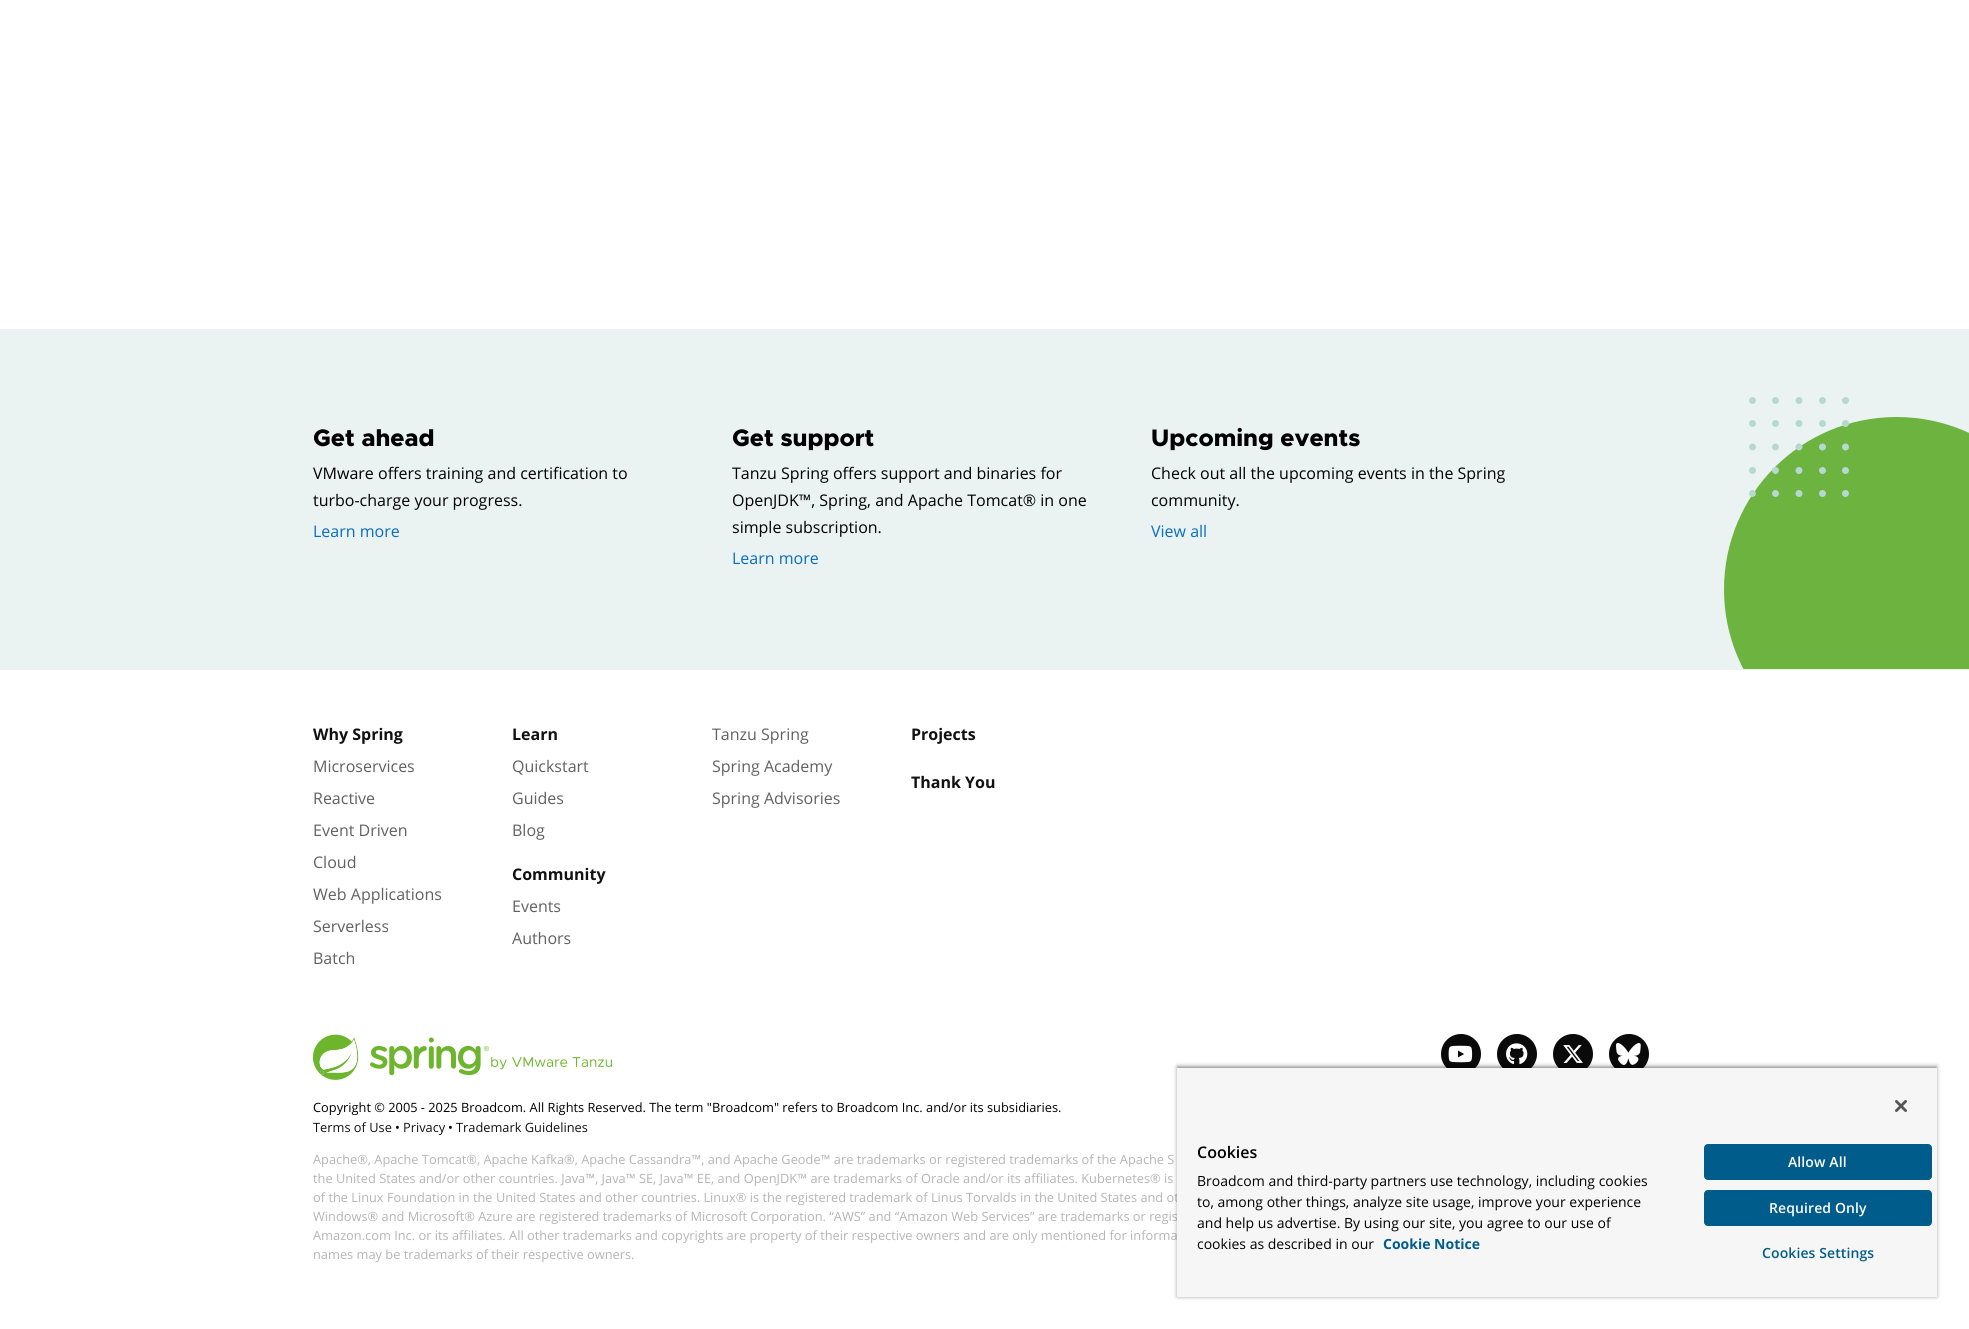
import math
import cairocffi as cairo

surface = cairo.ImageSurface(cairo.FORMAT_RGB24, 1969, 1329)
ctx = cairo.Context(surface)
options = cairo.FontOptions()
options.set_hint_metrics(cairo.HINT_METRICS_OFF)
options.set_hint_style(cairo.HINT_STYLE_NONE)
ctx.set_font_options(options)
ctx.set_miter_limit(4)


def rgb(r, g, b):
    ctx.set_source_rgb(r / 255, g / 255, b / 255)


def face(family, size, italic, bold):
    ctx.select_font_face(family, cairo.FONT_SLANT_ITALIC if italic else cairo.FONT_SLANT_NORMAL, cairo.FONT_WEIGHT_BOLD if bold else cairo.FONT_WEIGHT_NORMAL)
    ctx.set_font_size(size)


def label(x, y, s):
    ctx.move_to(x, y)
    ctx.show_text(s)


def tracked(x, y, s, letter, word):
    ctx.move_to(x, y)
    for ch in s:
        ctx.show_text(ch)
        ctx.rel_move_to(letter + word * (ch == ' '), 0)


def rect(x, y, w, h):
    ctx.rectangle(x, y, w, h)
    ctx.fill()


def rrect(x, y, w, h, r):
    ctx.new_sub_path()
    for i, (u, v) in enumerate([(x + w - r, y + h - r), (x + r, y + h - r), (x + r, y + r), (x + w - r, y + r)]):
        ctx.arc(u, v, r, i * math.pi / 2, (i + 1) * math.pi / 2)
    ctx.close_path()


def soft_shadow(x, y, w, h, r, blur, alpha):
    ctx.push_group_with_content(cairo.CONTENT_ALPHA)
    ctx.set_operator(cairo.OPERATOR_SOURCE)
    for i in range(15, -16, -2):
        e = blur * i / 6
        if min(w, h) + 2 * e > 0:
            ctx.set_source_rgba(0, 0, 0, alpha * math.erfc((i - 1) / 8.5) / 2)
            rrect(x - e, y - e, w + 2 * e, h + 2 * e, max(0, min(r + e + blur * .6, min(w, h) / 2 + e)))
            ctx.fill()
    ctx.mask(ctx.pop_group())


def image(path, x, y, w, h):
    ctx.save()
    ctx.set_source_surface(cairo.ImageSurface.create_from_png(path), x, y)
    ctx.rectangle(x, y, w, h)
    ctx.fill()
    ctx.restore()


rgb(255, 255, 255)
ctx.paint()
rgb(235, 242, 242)
rect(0, 329, 1969, 341)
face('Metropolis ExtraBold', 24, 0, 0)
rgb(0, 0, 0)
label(313, 446, 'Get ahead')
face('Open Sans', 16, 0, 0)
label(313, 479, 'VMware offers training and certification to')
label(313, 506, 'turbo-charge your progress.')
rgb(8, 109, 195)
label(313, 537, 'Learn more')
face('Metropolis ExtraBold', 24, 0, 0)
rgb(0, 0, 0)
label(732, 446, 'Get support')
face('Open Sans', 16, 0, 0)
label(732, 479, 'Tanzu Spring offers support and binaries for')
label(732, 506, 'OpenJDK™, Spring, and Apache Tomcat® in one')
label(732, 533, 'simple subscription.')
rgb(8, 109, 195)
label(732, 564, 'Learn more')
face('Metropolis ExtraBold', 24, 0, 0)
rgb(0, 0, 0)
label(1151, 446, 'Upcoming events')
face('Open Sans', 16, 0, 0)
label(1151, 479, 'Check out all the upcoming events in the Spring')
label(1151, 506, 'community.')
rgb(8, 109, 195)
label(1151, 537, 'View all')
ctx.save()
ctx.rectangle(0, 329, 1969, 340)
ctx.clip()
rgb(109, 179, 63)
ctx.arc(1896.5, 589.5, 172.5, 0, 2 * math.pi)
ctx.fill()
ctx.restore()
image('image0.png', 1749, 397, 100, 100)
face('Open Sans', 16, 0, 1)
rgb(17, 17, 17)
label(313, 740, 'Why Spring')
face('Open Sans', 16, 0, 0)
rgb(97, 97, 97)
label(313, 772, 'Microservices')
label(313, 804, 'Reactive')
label(313, 836, 'Event Driven')
label(313, 868, 'Cloud')
label(313, 900, 'Web Applications')
label(313, 932, 'Serverless')
label(313, 964, 'Batch')
face('Open Sans', 16, 0, 1)
rgb(17, 17, 17)
label(512, 740, 'Learn')
face('Open Sans', 16, 0, 0)
rgb(97, 97, 97)
label(512, 772, 'Quickstart')
label(512, 804, 'Guides')
label(512, 836, 'Blog')
face('Open Sans', 16, 0, 1)
rgb(17, 17, 17)
label(512, 880, 'Community')
face('Open Sans', 16, 0, 0)
rgb(97, 97, 97)
label(512, 912, 'Events')
label(512, 944, 'Authors')
label(712, 740, 'Tanzu Spring')
label(712, 772, 'Spring Academy')
label(712, 804, 'Spring Advisories')
face('Open Sans', 16, 0, 1)
rgb(17, 17, 17)
label(911, 740, 'Projects')
label(911, 788, 'Thank You')
rgb(10, 10, 10)
ctx.new_path()
ctx.arc(1461, 1054, 20, 0, 2 * math.pi)
ctx.fill()
image('image1.png', 1448, 1045, 25, 18)
ctx.arc(1517, 1054, 20, 0, 2 * math.pi)
ctx.fill()
image('image2.png', 1506, 1043, 22, 22)
ctx.arc(1573, 1054, 20, 0, 2 * math.pi)
ctx.fill()
image('image3.png', 1563, 1045, 20, 18)
ctx.arc(1629, 1054, 20, 0, 2 * math.pi)
ctx.fill()
image('image4.png', 1616, 1043, 25, 22)
image('image5.png', 313, 1034, 299, 46)
face('Open Sans', 12.8, 0, 0)
rgb(0, 0, 0)
label(313, 1112, 'Copyright © 2005 - 2025 Broadcom. All Rights Reserved. The term "Broadcom" refers to Broadcom Inc. and/or its subsidiaries.')
rgb(17, 17, 17)
label(313, 1132, 'Terms of Use')
rgb(0, 0, 0)
label(395, 1132, '•')
rgb(17, 17, 17)
label(403, 1132, 'Privacy')
rgb(0, 0, 0)
label(448, 1132, '•')
rgb(17, 17, 17)
label(456, 1132, 'Trademark Guidelines')
rgb(181, 181, 181)
label(313, 1164, 'Apache®, Apache Tomcat®, Apache Kafka®, Apache Cassandra™, and Apache Geode™ are trademarks or registered trademarks of the Apache S')
label(313, 1183, 'the United States and/or other countries. Java™, Java™ SE, Java™ EE, and OpenJDK™ are trademarks of Oracle and/or its affiliates. Kubernetes® is')
label(313, 1202, 'of the Linux Foundation in the United States and other countries. Linux® is the registered trademark of Linus Torvalds in the United States and ot')
label(313, 1221, 'Windows® and Microsoft® Azure are registered trademarks of Microsoft Corporation. “AWS” and “Amazon Web Services” are trademarks or regis')
label(313, 1240, 'Amazon.com Inc. or its affiliates. All other trademarks and copyrights are property of their respective owners and are only mentioned for informa')
label(313, 1259, 'names may be trademarks of their respective owners.')
rgb(0, 0, 0)
soft_shadow(1177, 1066, 760, 231, 0, 2, 0.35)
ctx.save()
ctx.rectangle(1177, 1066, 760, 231)
ctx.clip()
soft_shadow(1177, 1068, 760, 229, 0, 2, 0.2)
ctx.restore()
rgb(246, 246, 246)
rect(1177, 1068, 760, 229)
image('image6.png', 1895, 1100, 12, 12)
face('Open Sans SemiBold', 16, 0, 0)
rgb(0, 0, 0)
label(1197, 1158, 'Cookies')
face('Open Sans', 14, 0, 0)
label(1197, 1186, 'Broadcom and third-party partners use technology, including cookies')
label(1197, 1207, 'to, among other things, analyze site usage, improve your experience')
label(1197, 1228, 'and help us advertise. By using our site, you agree to our use of')
label(1197, 1249, 'cookies as described in our')
face('Open Sans', 14, 0, 1)
rgb(0, 92, 138)
label(1383, 1249, 'Cookie Notice')
rrect(1704.5, 1144.5, 227, 35, 3.5)
ctx.fill_preserve()
ctx.set_line_width(1)
ctx.stroke()
face('Open Sans SemiBold', 14, 0, 0)
rgb(255, 255, 255)
tracked(1788, 1167, 'Allow All', 0.1, 0)
rgb(0, 92, 138)
rrect(1704.5, 1190.5, 227, 35, 3.5)
ctx.fill_preserve()
ctx.stroke()
rgb(255, 255, 255)
tracked(1769, 1213, 'Required Only', 0.1, 0)
rgb(0, 92, 138)
tracked(1762, 1258, 'Cookies Settings', 0.1, 0)
surface.write_to_png('render.png')
